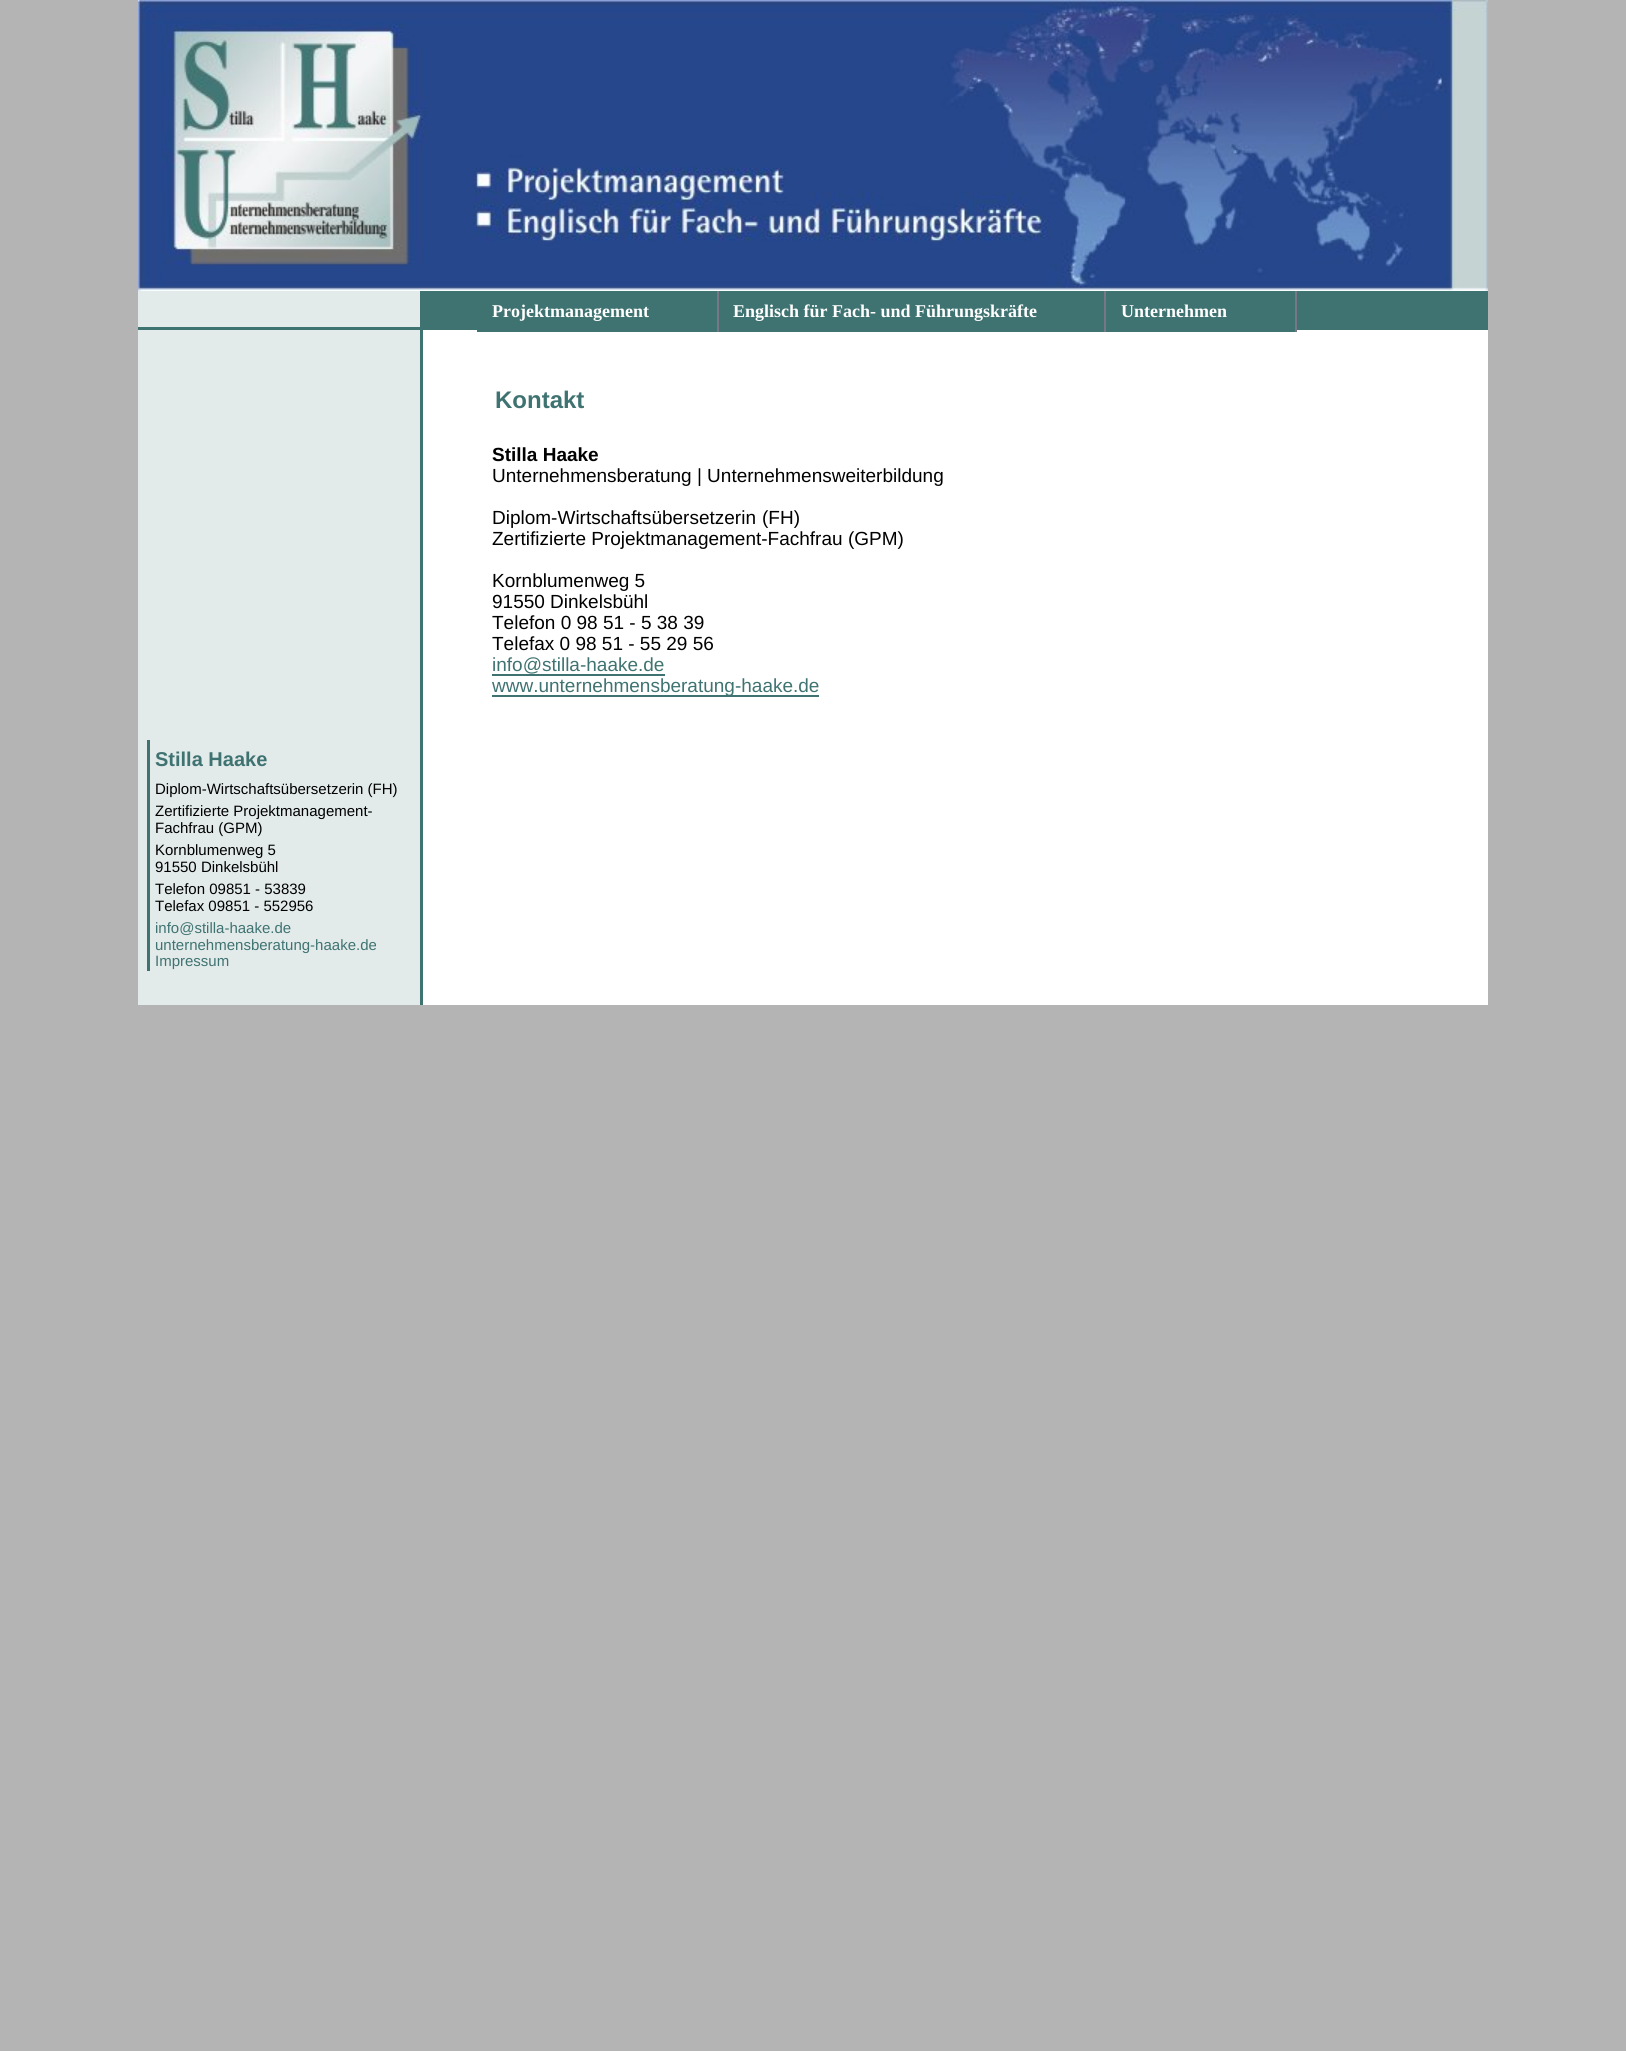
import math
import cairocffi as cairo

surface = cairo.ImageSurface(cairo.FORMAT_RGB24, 1626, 2051)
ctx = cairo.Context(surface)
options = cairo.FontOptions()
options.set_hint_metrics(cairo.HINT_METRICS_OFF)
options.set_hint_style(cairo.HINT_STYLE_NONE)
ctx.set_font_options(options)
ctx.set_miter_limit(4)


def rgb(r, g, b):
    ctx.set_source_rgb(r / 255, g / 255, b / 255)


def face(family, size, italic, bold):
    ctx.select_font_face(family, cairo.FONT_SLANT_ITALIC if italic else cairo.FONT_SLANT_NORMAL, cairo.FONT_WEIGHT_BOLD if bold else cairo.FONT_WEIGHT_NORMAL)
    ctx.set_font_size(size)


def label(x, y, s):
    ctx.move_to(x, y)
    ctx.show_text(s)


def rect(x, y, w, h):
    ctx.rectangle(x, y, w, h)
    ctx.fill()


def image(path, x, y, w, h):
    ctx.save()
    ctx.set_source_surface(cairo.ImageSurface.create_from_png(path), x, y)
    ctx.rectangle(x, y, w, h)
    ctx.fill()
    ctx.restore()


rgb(180, 180, 180)
ctx.paint()
image('image0.png', 138, 0, 1350, 291)
rgb(63, 115, 113)
rect(423, 291, 1065, 36)
rgb(226, 234, 234)
rect(138, 291, 282, 36)
rgb(63, 115, 113)
rect(420, 291, 3, 38)
rgb(255, 255, 255)
rect(423, 330, 1065, 675)
rgb(63, 115, 113)
rect(477, 330, 240, 2)
rect(138, 327, 1350, 3)
rgb(119, 119, 136)
rect(717, 291, 2, 41)
face('Liberation Serif', 18, 0, 1)
rgb(255, 255, 255)
label(492, 317, 'Projektmanagement')
rgb(63, 115, 113)
rect(719, 330, 385, 2)
rgb(119, 119, 136)
rect(1104, 291, 2, 41)
rgb(255, 255, 255)
label(733, 317, 'Englisch für Fach- und Führungskräfte')
rgb(63, 115, 113)
rect(1106, 330, 189, 2)
rgb(119, 119, 136)
rect(1295, 291, 2, 41)
rgb(255, 255, 255)
label(1121, 317, 'Unternehmen')
face('Liberation Sans', 24, 0, 1)
rgb(63, 115, 113)
label(495, 408, 'Kontakt')
face('Liberation Sans', 19, 0, 1)
rgb(0, 0, 0)
label(492, 461, 'Stilla Haake')
face('Liberation Sans', 19, 0, 0)
label(492, 482, 'Unternehmensberatung | Unternehmensweiterbildung')
label(492, 524, 'Diplom-Wirtschaftsübersetzerin')
label(762, 524, '(FH)')
label(492, 545, 'Zertifizierte Projektmanagement-Fachfrau')
label(848, 545, '(GPM)')
label(492, 587, 'Kornblumenweg 5')
label(492, 608, '91550 Dinkelsbühl')
label(492, 629, 'Telefon 0 98 51 - 5 38 39')
label(492, 650, 'Telefax 0 98 51 - 55 29 56')
rgb(63, 115, 113)
label(492, 671, 'info@stilla-haake.de')
rect(492, 674, 173, 2)
rect(492, 695, 327, 2)
label(492, 692, 'www.unternehmensberatung-haake.de')
rgb(226, 234, 234)
rect(138, 330, 282, 675)
rgb(63, 115, 113)
rect(420, 327, 3, 678)
rect(147, 740, 3, 231)
face('Liberation Sans', 20, 0, 1)
label(155, 766, 'Stilla Haake')
face('Liberation Sans', 15, 0, 0)
rgb(0, 0, 0)
label(155, 794, 'Diplom-Wirtschaftsübersetzerin (FH)')
label(155, 816, 'Zertifizierte Projektmanagement-')
label(155, 833, 'Fachfrau (GPM)')
label(155, 855, 'Kornblumenweg 5')
label(155, 872, '91550 Dinkelsbühl')
label(155, 894, 'Telefon 09851 - 53839')
label(155, 911, 'Telefax 09851 - 552956')
rgb(63, 115, 113)
label(155, 933, 'info@stilla-haake.de')
label(155, 950, 'unternehmensberatung-haake.de')
label(155, 966, 'Impressum')
surface.write_to_png('render.png')
